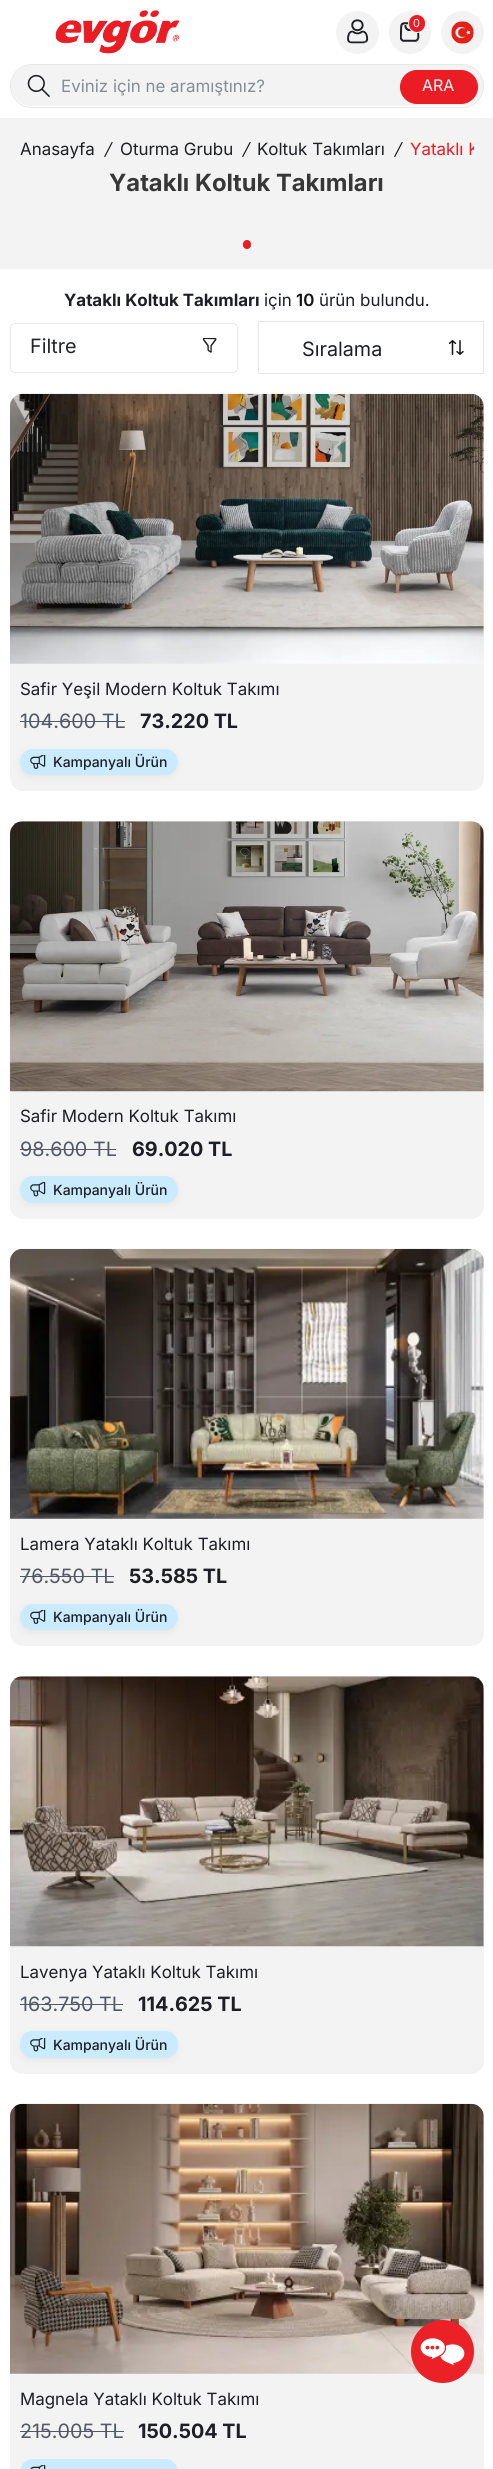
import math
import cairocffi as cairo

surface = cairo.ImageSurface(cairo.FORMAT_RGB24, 493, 2469)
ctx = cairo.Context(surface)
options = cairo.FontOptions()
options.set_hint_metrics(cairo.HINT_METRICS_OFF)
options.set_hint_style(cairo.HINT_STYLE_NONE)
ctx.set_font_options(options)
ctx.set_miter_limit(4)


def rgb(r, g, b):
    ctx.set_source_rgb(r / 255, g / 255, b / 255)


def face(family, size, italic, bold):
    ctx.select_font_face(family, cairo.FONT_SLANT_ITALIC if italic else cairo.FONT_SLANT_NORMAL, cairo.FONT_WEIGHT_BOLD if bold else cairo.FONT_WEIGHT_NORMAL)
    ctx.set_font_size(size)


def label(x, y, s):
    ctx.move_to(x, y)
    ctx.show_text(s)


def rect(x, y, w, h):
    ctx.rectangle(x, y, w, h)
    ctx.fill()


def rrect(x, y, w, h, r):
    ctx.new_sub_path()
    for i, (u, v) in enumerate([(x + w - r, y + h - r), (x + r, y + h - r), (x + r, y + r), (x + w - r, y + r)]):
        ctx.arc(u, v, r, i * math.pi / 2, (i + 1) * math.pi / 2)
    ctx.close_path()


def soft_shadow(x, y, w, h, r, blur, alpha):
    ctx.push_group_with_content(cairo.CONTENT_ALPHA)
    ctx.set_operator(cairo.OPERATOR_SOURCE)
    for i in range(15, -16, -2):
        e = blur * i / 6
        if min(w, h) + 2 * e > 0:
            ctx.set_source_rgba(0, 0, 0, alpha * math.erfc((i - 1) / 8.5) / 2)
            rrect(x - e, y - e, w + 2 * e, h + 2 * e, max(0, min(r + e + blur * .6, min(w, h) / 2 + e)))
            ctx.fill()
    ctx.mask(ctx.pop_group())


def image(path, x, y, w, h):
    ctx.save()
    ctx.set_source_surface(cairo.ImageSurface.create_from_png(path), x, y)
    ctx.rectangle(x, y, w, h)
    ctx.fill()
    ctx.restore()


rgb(255, 255, 255)
ctx.paint()
image('image0.png', 55, 10, 125, 44)
rgb(243, 243, 243)
ctx.arc(357.5, 32.5, 21.5, 0, 2 * math.pi)
ctx.fill()
image('image1.png', 347, 19, 22, 25)
rrect(389, 11, 42, 43, 21)
ctx.fill()
image('image2.png', 400, 22, 20, 20)
rgb(234, 28, 36)
rrect(408.5, 14.5, 17, 18, 8.5)
ctx.fill_preserve()
rgb(243, 243, 243)
ctx.set_line_width(1)
ctx.stroke()
face('Inter', 11, 0, 0)
rgb(255, 255, 255)
label(413, 27, '0')
rgb(243, 243, 243)
ctx.new_path()
ctx.arc(462.5, 32.5, 21.5, 0, 2 * math.pi)
ctx.fill()
image('image3.png', 451, 21, 23, 23)
rrect(11, 65, 472, 41, 20.5)
ctx.fill()
rrect(10.5, 64.5, 473, 43, 21.5)
rgb(232, 232, 232)
ctx.stroke()
image('image4.png', 27, 74, 23, 23)
face('Inter', 16.9, 0, 0)
rgb(134, 140, 152)
label(61, 92, 'Eviniz için ne aramıştınız?')
rgb(234, 28, 36)
rrect(400.5, 70.5, 77, 33, 16.5)
ctx.fill_preserve()
ctx.stroke()
face('Inter', 16, 0, 0)
rgb(255, 255, 255)
label(422, 91, 'ARA')
rgb(243, 243, 243)
rrect(10, 2104, 474, 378, 13)
ctx.fill()
image('image16.png', 10, 2103, 474, 271)
rgb(235, 33, 39)
ctx.arc(442.5, 2351.5, 31.5, 0, 2 * math.pi)
ctx.fill()
image('image5.png', 420, 2337, 45, 30)
rgb(243, 243, 243)
rect(0, 118, 493, 151)
face('Inter', 16.9, 0, 0)
rgb(29, 31, 37)
label(20, 155, 'Anasayfa')
face('Inter', 16.9, 1, 0)
label(104, 155, '/')
face('Inter', 16.9, 0, 0)
label(120, 155, 'Oturma Grubu')
face('Inter', 16.9, 1, 0)
label(242, 155, '/')
face('Inter', 16.9, 0, 0)
label(257, 155, 'Koltuk Takımları')
face('Inter', 16.9, 1, 0)
label(394, 155, '/')
ctx.save()
ctx.rectangle(20, 138, 454, 22)
ctx.clip()
face('Inter', 16.9, 0, 0)
rgb(234, 28, 36)
label(410, 155, 'Yataklı K')
ctx.restore()
face('Inter', 23.75, 0, 1)
rgb(55, 55, 56)
label(109, 191, 'Yataklı Koltuk Takımları')
rgb(234, 28, 36)
rrect(243, 240, 8, 9, 4)
ctx.fill()
face('Inter', 16.9, 0, 1)
rgb(29, 31, 37)
label(64, 306, 'Yataklı Koltuk Takımları')
face('Inter', 16.9, 0, 0)
label(264, 306, 'için')
face('Inter SemiBold', 16.9, 0, 0)
rgb(20, 20, 20)
label(296, 306, '10')
face('Inter', 16.9, 0, 0)
rgb(29, 31, 37)
label(319, 306, 'ürün bulundu.')
rrect(10.5, 323.5, 227, 49, 4.5)
rgb(232, 232, 232)
ctx.stroke()
face('Inter', 19.75, 0, 0)
rgb(33, 37, 41)
label(30, 353, 'Filtre')
image('image6.png', 203, 338, 14, 15)
ctx.rectangle(258.5, 321.5, 225, 52)
rgb(232, 232, 232)
ctx.stroke()
image('image7.png', 449, 340, 15, 15)
rgb(29, 31, 37)
label(302, 356, 'Sıralama')
rgb(243, 243, 243)
rrect(10, 394, 474, 397, 13)
ctx.fill()
image('image8.png', 10, 393, 474, 271)
face('Inter', 16.9, 0, 0)
rgb(29, 31, 37)
label(20, 695, 'Safir Yeşil Modern Koltuk Takımı')
face('Inter', 19.75, 0, 0)
rgb(82, 88, 102)
label(20, 728, '104.600 TL')
rect(20, 721, 105, 1)
face('Inter', 19.75, 0, 1)
rgb(29, 31, 37)
label(140, 728, '73.220 TL')
rgb(0, 0, 0)
soft_shadow(26, 758, 145, 13, 6, 6, 0.19)
rgb(202, 235, 253)
rrect(20, 749, 158, 26, 13)
ctx.fill()
image('image9.png', 30, 755, 16, 14)
face('Inter Medium', 14, 0, 0)
rgb(29, 31, 37)
label(53, 767, 'Kampanyalı Ürün')
rgb(243, 243, 243)
rrect(10, 821, 474, 398, 13)
ctx.fill()
image('image10.png', 10, 821, 474, 271)
face('Inter', 16.9, 0, 0)
rgb(29, 31, 37)
label(20, 1122, 'Safir Modern Koltuk Takımı')
face('Inter', 19.75, 0, 0)
rgb(82, 88, 102)
label(20, 1156, '98.600 TL')
rect(20, 1149, 96, 1)
face('Inter', 19.75, 0, 1)
rgb(29, 31, 37)
label(132, 1156, '69.020 TL')
rgb(0, 0, 0)
soft_shadow(26, 1185, 145, 14, 6, 6, 0.19)
rgb(202, 235, 253)
rrect(20, 1176, 158, 27, 13)
ctx.fill()
image('image11.png', 30, 1182, 16, 15)
face('Inter Medium', 14, 0, 0)
rgb(29, 31, 37)
label(53, 1195, 'Kampanyalı Ürün')
rgb(243, 243, 243)
rrect(10, 1249, 474, 397, 13)
ctx.fill()
image('image12.png', 10, 1248, 474, 271)
face('Inter', 16.9, 0, 0)
rgb(29, 31, 37)
label(20, 1550, 'Lamera Yataklı Koltuk Takımı')
face('Inter', 19.75, 0, 0)
rgb(82, 88, 102)
label(20, 1583, '76.550 TL')
rect(20, 1576, 94, 1)
face('Inter', 19.75, 0, 1)
rgb(29, 31, 37)
label(129, 1583, '53.585 TL')
rgb(0, 0, 0)
soft_shadow(26, 1613, 145, 13, 6, 6, 0.19)
rgb(202, 235, 253)
rrect(20, 1604, 158, 26, 13)
ctx.fill()
image('image13.png', 30, 1610, 16, 14)
face('Inter Medium', 14, 0, 0)
rgb(29, 31, 37)
label(53, 1622, 'Kampanyalı Ürün')
rgb(243, 243, 243)
rrect(10, 1676, 474, 398, 13)
ctx.fill()
image('image14.png', 10, 1676, 474, 271)
face('Inter', 16.9, 0, 0)
rgb(29, 31, 37)
label(20, 1978, 'Lavenya Yataklı Koltuk Takımı')
face('Inter', 19.75, 0, 0)
rgb(82, 88, 102)
label(20, 2011, '163.750 TL')
rect(20, 2004, 103, 1)
face('Inter', 19.75, 0, 1)
rgb(29, 31, 37)
label(138, 2011, '114.625 TL')
rgb(0, 0, 0)
soft_shadow(26, 2040, 145, 14, 6, 6, 0.19)
rgb(202, 235, 253)
rrect(20, 2031, 158, 27, 13)
ctx.fill()
image('image15.png', 30, 2038, 16, 14)
face('Inter Medium', 14, 0, 0)
rgb(29, 31, 37)
label(53, 2050, 'Kampanyalı Ürün')
face('Inter', 16.9, 0, 0)
label(20, 2405, 'Magnela Yataklı Koltuk Takımı')
face('Inter', 19.75, 0, 0)
rgb(82, 88, 102)
label(20, 2438, '215.005 TL')
rect(20, 2431, 104, 1)
face('Inter', 19.75, 0, 1)
rgb(29, 31, 37)
label(138, 2438, '150.504 TL')
rgb(202, 235, 253)
rrect(20, 2459, 158, 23, 13)
ctx.fill()
image('image17.png', 30, 2465, 16, 4)
surface.write_to_png('render.png')
